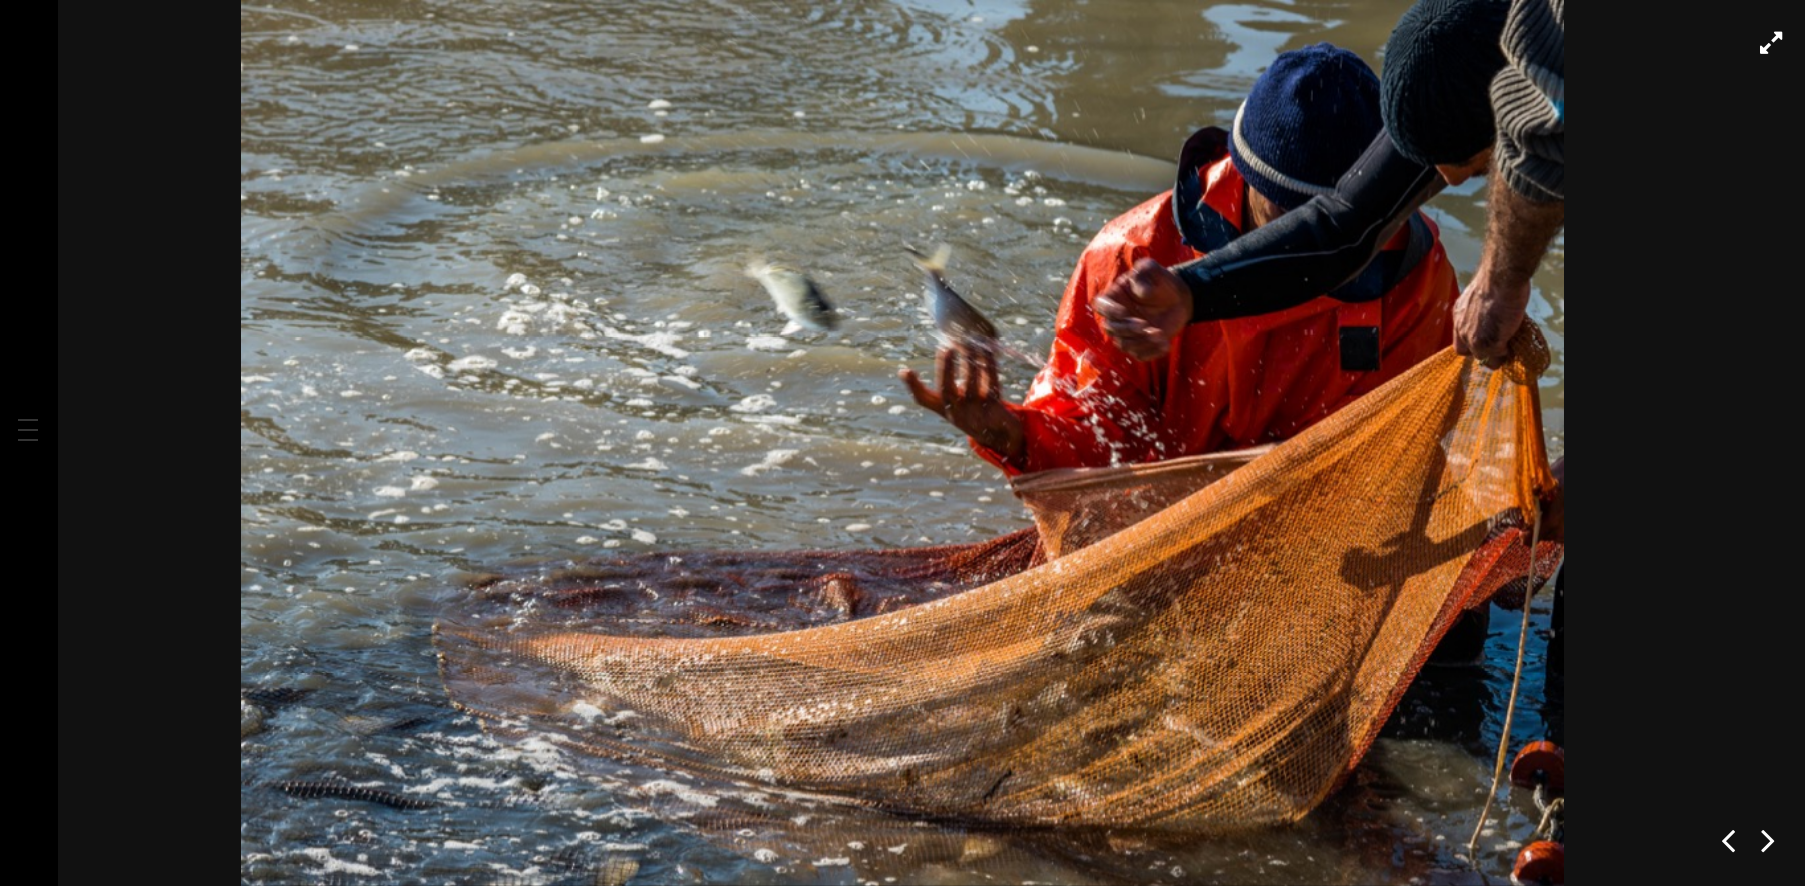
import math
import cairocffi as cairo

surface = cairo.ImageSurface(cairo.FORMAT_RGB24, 1805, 886)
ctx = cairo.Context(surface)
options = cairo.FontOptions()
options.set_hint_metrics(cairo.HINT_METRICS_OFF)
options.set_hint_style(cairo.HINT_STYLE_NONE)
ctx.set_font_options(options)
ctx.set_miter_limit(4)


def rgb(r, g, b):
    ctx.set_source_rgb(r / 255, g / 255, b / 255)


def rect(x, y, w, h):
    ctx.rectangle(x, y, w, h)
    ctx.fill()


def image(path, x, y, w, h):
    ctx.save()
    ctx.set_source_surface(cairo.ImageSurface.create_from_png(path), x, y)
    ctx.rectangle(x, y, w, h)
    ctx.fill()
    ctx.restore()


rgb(17, 17, 17)
ctx.paint()
rgb(0, 0, 0)
rect(0, 0, 58, 886)
rgb(51, 51, 51)
rect(18, 429, 20, 2)
rect(18, 419, 20, 2)
rect(18, 439, 20, 2)
image('image0.png', 241, 0, 1323, 886)
image('image1.png', 1760, 31, 23, 23)
image('image2.png', 1722, 830, 13, 23)
image('image3.png', 1761, 830, 14, 23)
surface.write_to_png('render.png')
